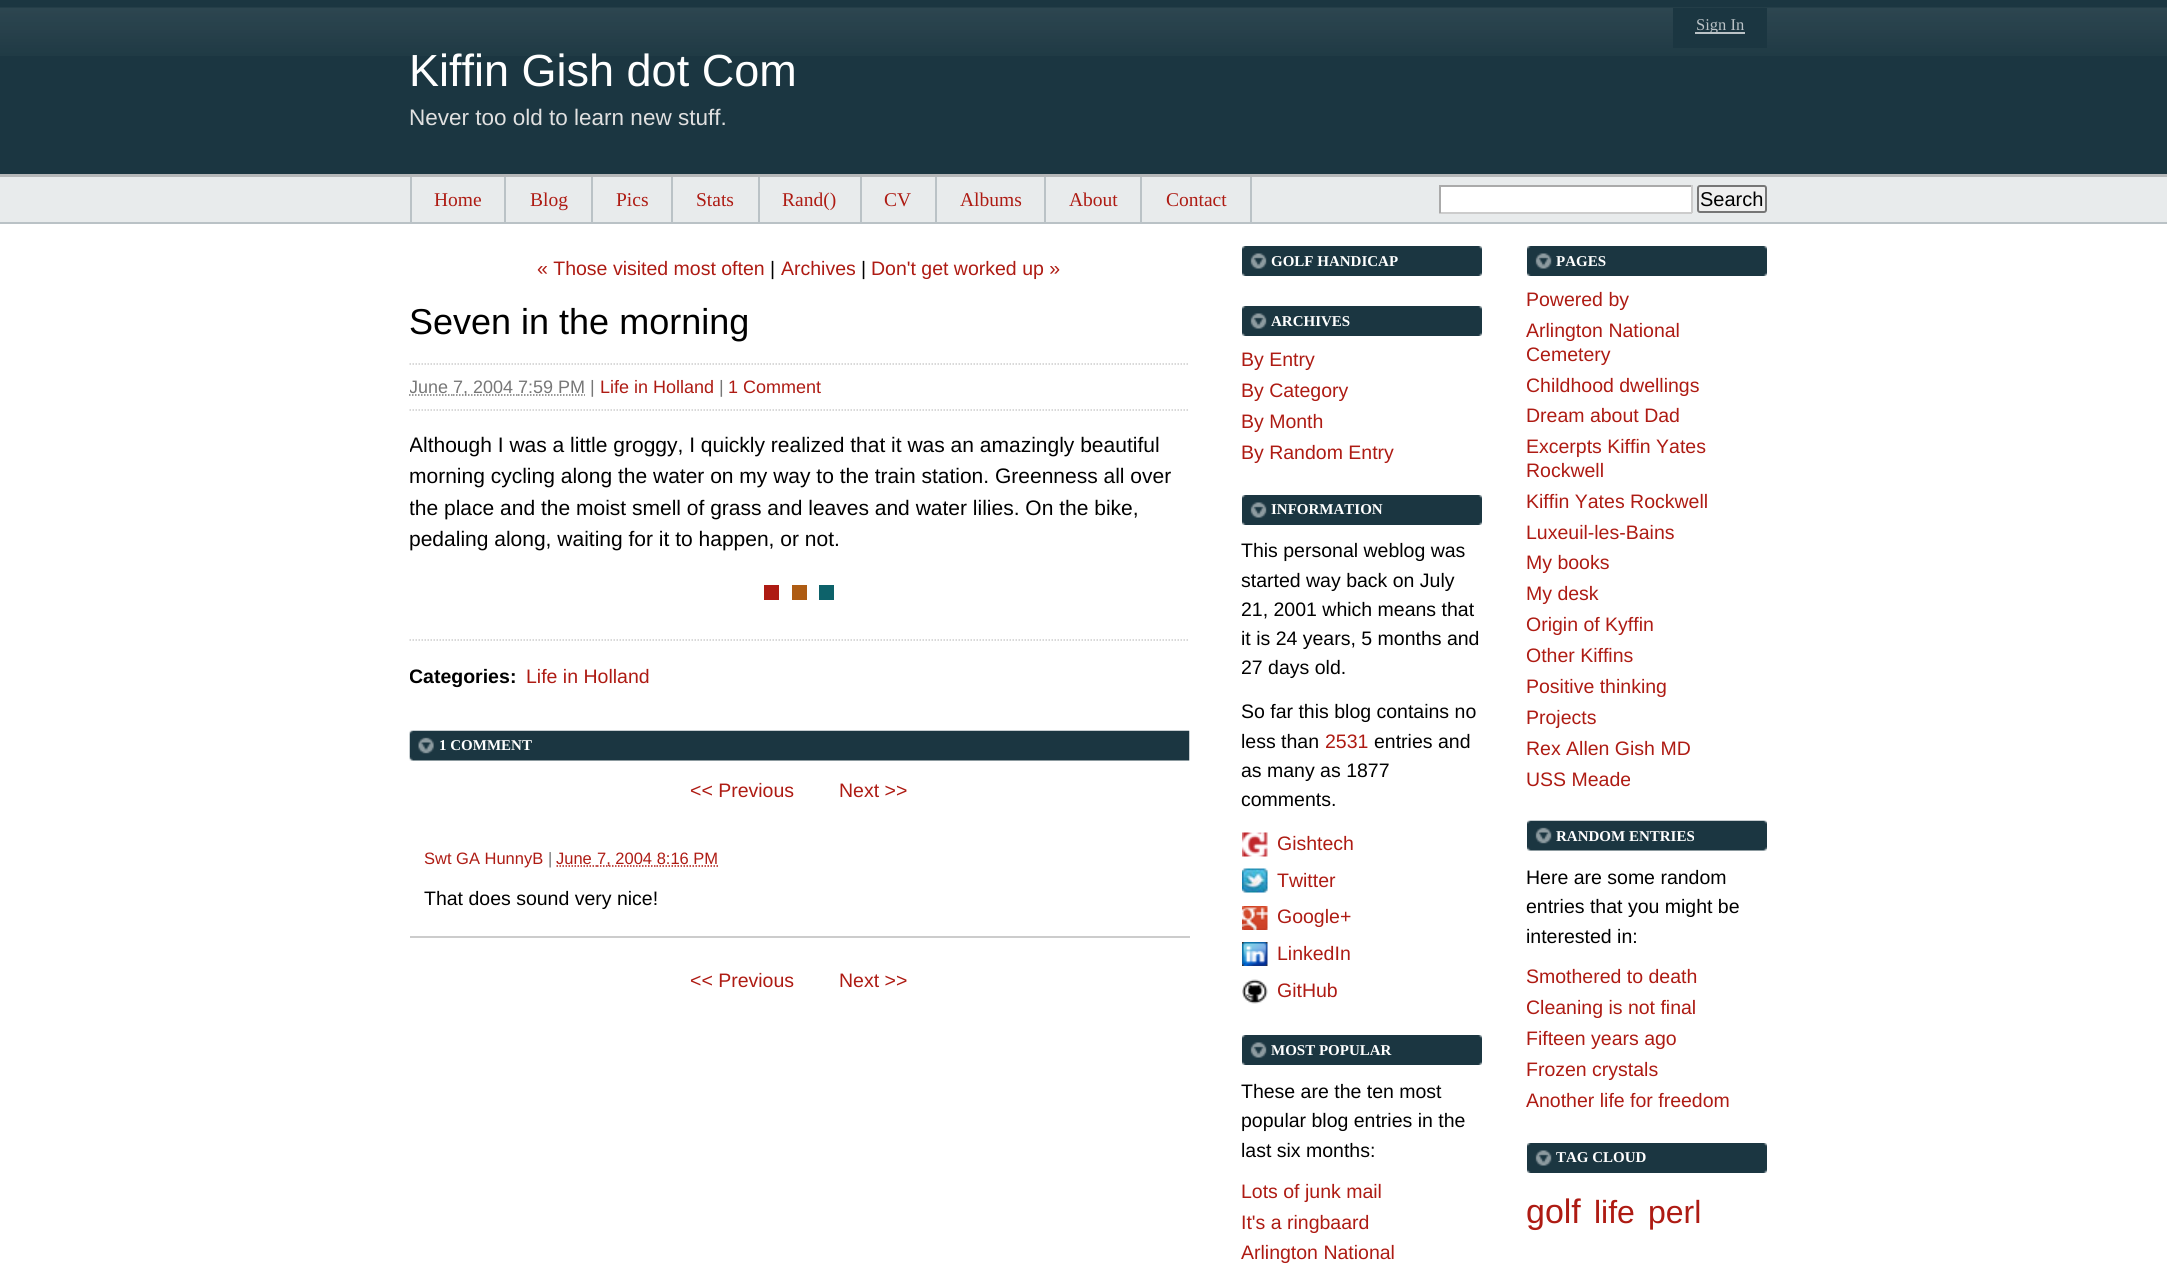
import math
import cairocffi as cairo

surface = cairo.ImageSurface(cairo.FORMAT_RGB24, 2167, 1267)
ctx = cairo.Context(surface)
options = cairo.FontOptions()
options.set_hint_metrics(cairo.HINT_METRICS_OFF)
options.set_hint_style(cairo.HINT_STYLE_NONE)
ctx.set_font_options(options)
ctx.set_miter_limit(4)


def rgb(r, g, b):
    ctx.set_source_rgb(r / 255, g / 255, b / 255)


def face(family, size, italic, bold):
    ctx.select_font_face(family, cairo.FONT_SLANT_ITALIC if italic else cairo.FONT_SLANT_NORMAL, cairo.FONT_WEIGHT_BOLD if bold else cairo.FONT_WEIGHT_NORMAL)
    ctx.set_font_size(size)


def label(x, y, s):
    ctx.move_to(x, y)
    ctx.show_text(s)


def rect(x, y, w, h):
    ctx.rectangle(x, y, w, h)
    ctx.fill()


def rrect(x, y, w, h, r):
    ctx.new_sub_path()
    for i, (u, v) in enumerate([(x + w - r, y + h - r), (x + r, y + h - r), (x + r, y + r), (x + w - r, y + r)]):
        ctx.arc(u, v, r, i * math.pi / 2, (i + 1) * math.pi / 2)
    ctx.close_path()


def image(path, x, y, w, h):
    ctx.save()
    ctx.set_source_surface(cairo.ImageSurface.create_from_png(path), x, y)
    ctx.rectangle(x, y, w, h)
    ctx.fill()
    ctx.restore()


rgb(255, 255, 255)
ctx.paint()
rgb(27, 54, 65)
rect(0, 0, 2167, 174)
image('image0.png', 0, 7, 2167, 49)
rect(1673, 8, 94, 40)
rgb(186, 194, 198)
rect(1695, 32, 50, 2)
face('Liberation Serif', 16.5, 0, 0)
label(1696, 30, 'Sign In')
face('Liberation Sans', 45, 0, 0)
rgb(255, 255, 255)
label(409, 86, 'Kiffin Gish dot Com')
face('Liberation Sans', 22.5, 0, 0)
rgb(224, 224, 224)
label(409, 125, 'Never too old to learn new stuff.')
rgb(232, 235, 236)
rect(0, 177, 2167, 45)
rgb(181, 183, 184)
rect(0, 174, 2167, 3)
rgb(186, 194, 198)
rect(0, 222, 2167, 2)
rect(410, 177, 2, 45)
face('Liberation Serif', 19.5, 0, 0)
rgb(174, 27, 19)
label(434, 206, 'Home')
rgb(186, 194, 198)
rect(504, 177, 2, 45)
rgb(174, 27, 19)
label(530, 206, 'Blog')
rgb(186, 194, 198)
rect(591, 177, 2, 45)
rgb(174, 27, 19)
label(616, 206, 'Pics')
rgb(186, 194, 198)
rect(671, 177, 2, 45)
rgb(174, 27, 19)
label(696, 206, 'Stats')
rgb(186, 194, 198)
rect(758, 177, 2, 45)
rgb(174, 27, 19)
label(782, 206, 'Rand()')
rgb(186, 194, 198)
rect(860, 177, 2, 45)
rgb(174, 27, 19)
label(884, 206, 'CV')
rgb(186, 194, 198)
rect(935, 177, 2, 45)
rgb(174, 27, 19)
label(960, 206, 'Albums')
rgb(186, 194, 198)
rect(1044, 177, 2, 45)
rgb(174, 27, 19)
label(1069, 206, 'About')
rgb(186, 194, 198)
rect(1250, 177, 2, 45)
rect(1140, 177, 2, 45)
rgb(174, 27, 19)
label(1166, 206, 'Contact')
rgb(255, 255, 255)
rect(1441, 187, 250, 25)
rgb(170, 170, 170)
rect(1439, 185, 253, 2)
rgb(204, 204, 204)
rect(1691, 185, 2, 28)
rect(1439, 212, 253, 2)
rgb(170, 170, 170)
rect(1439, 185, 2, 28)
rgb(239, 239, 239)
rrect(1698, 186, 68, 26, 2)
ctx.fill_preserve()
rgb(118, 118, 118)
ctx.stroke()
face('Liberation Sans', 20, 0, 0)
rgb(0, 0, 0)
label(1700, 206, 'Search')
face('Liberation Sans', 19.5, 0, 0)
rgb(174, 27, 19)
label(537, 275, '« Those visited most often')
rgb(0, 0, 0)
label(770, 275, '|')
rgb(174, 27, 19)
label(781, 275, 'Archives')
rgb(0, 0, 0)
label(861, 275, '|')
rgb(174, 27, 19)
label(871, 275, 'Don\'t get worked up »')
face('Liberation Sans', 36, 0, 0)
rgb(0, 0, 0)
label(409, 334, 'Seven in the morning')
ctx.new_path()
ctx.move_to(409.5, 364)
ctx.line_to(1189.5, 364)
rgb(204, 204, 204)
ctx.set_line_width(1.5)
ctx.set_dash([1.5, 1.5])
ctx.stroke()
ctx.new_path()
ctx.move_to(409.5, 410)
ctx.line_to(1189.5, 410)
ctx.stroke()
ctx.save()
ctx.rectangle(410, 299, 780, 403)
ctx.clip()
face('Liberation Sans', 18, 0, 0)
rgb(119, 119, 119)
label(409, 393, 'June')
ctx.restore()
ctx.new_path()
ctx.move_to(453, 395)
ctx.line_to(518, 395)
rgb(119, 119, 119)
ctx.stroke()
face('Liberation Sans', 18, 0, 0)
label(453, 393, '7, 2004 7:59 PM |')
ctx.new_path()
ctx.move_to(409, 395)
ctx.line_to(453, 395)
ctx.stroke()
ctx.new_path()
ctx.move_to(518, 395)
ctx.line_to(585, 395)
ctx.stroke()
rgb(174, 27, 19)
label(600, 393, 'Life in Holland')
rgb(119, 119, 119)
label(719, 393, '|')
rgb(174, 27, 19)
label(728, 393, '1 Comment')
ctx.save()
ctx.rectangle(410, 299, 780, 403)
ctx.clip()
face('Liberation Sans', 21, 0, 0)
rgb(0, 0, 0)
label(409, 452, 'Although I was a little groggy, I quickly realized that it was an amazingly beautiful')
ctx.restore()
face('Liberation Sans', 21, 0, 0)
rgb(0, 0, 0)
label(409, 483, 'morning cycling along the water on my way to the train station. Greenness all over')
ctx.save()
ctx.rectangle(410, 299, 780, 403)
ctx.clip()
label(409, 515, 'the place and the moist smell of grass and leaves and water lilies. On the bike,')
ctx.restore()
label(409, 546, 'pedaling along, waiting for it to happen, or not.')
rgb(174, 27, 19)
rect(764, 585, 15, 15)
rgb(174, 92, 19)
rect(792, 585, 15, 15)
rgb(13, 98, 106)
rect(819, 585, 15, 15)
ctx.new_path()
ctx.move_to(409.5, 640)
ctx.line_to(1189.5, 640)
rgb(204, 204, 204)
ctx.stroke()
ctx.save()
ctx.rectangle(410, 299, 780, 403)
ctx.clip()
face('Liberation Sans', 19.5, 0, 1)
rgb(0, 0, 0)
label(409, 683, 'Categories')
ctx.restore()
face('Liberation Sans', 19.5, 0, 1)
rgb(0, 0, 0)
label(510, 683, ':')
face('Liberation Sans', 19.5, 0, 0)
rgb(174, 27, 19)
label(526, 683, 'Life in Holland')
image('image1.png', 409, 730, 781, 31)
face('Liberation Serif', 15, 0, 1)
rgb(255, 255, 255)
label(439, 750, '1 COMMENT')
face('Liberation Sans', 19.5, 0, 0)
rgb(174, 27, 19)
label(690, 797, '<< Previous')
label(839, 797, 'Next >>')
rgb(204, 204, 204)
rect(410, 936, 780, 2)
face('Liberation Sans', 16.5, 0, 0)
rgb(174, 27, 19)
label(424, 864, 'Swt GA HunnyB')
rgb(119, 119, 119)
label(548, 864, '|')
rgb(174, 27, 19)
label(556, 864, 'June')
ctx.new_path()
ctx.move_to(597, 866)
ctx.line_to(656.5, 866)
ctx.stroke()
label(597, 864, '7, 2004 8:16 PM')
ctx.new_path()
ctx.move_to(556.5, 866)
ctx.line_to(597, 866)
ctx.stroke()
ctx.new_path()
ctx.move_to(656.5, 866)
ctx.line_to(718, 866)
ctx.stroke()
face('Liberation Sans', 19.5, 0, 0)
rgb(0, 0, 0)
label(424, 905, 'That does sound very nice!')
rgb(174, 27, 19)
label(690, 987, '<< Previous')
label(839, 987, 'Next >>')
image('image2.png', 1242, 246, 240, 30)
face('Liberation Serif', 15, 0, 1)
rgb(255, 255, 255)
label(1271, 266, 'GOLF HANDICAP')
image('image2.png', 1242, 306, 240, 30)
label(1271, 326, 'ARCHIVES')
face('Liberation Sans', 19.5, 0, 0)
rgb(174, 27, 19)
label(1241, 366, 'By Entry')
label(1241, 397, 'By Category')
label(1241, 428, 'By Month')
label(1241, 459, 'By Random Entry')
image('image2.png', 1242, 495, 240, 30)
face('Liberation Serif', 15, 0, 1)
rgb(255, 255, 255)
label(1271, 514, 'INFORMATION')
face('Liberation Sans', 19.5, 0, 0)
rgb(0, 0, 0)
label(1241, 557, 'This personal weblog was')
label(1241, 587, 'started way back on July')
label(1241, 616, '21, 2001 which means that')
label(1241, 645, 'it is 24 years, 5 months and')
label(1241, 674, '27 days old.')
label(1241, 718, 'So far this blog contains no')
label(1241, 748, 'less than')
rgb(174, 27, 19)
label(1325, 748, '2531')
rgb(0, 0, 0)
label(1374, 748, 'entries and')
label(1241, 777, 'as many as 1877')
label(1241, 806, 'comments.')
image('image3.png', 1242, 832, 26, 25)
rgb(174, 27, 19)
label(1277, 850, 'Gishtech')
image('image4.png', 1242, 868, 26, 25)
label(1277, 887, 'Twitter')
image('image5.png', 1242, 906, 26, 24)
label(1277, 923, 'Google+')
image('image6.png', 1242, 942, 26, 24)
label(1277, 960, 'LinkedIn')
image('image7.png', 1242, 979, 26, 25)
label(1277, 997, 'GitHub')
image('image2.png', 1242, 1035, 240, 30)
face('Liberation Serif', 15, 0, 1)
rgb(255, 255, 255)
label(1271, 1055, 'MOST POPULAR')
face('Liberation Sans', 19.5, 0, 0)
rgb(0, 0, 0)
label(1241, 1098, 'These are the ten most')
label(1241, 1127, 'popular blog entries in the')
label(1241, 1157, 'last six months:')
rgb(174, 27, 19)
label(1241, 1198, 'Lots of junk mail')
label(1241, 1229, 'It\'s a ringbaard')
label(1241, 1259, 'Arlington National')
image('image8.png', 1527, 246, 240, 30)
face('Liberation Serif', 15, 0, 1)
rgb(255, 255, 255)
label(1556, 266, 'PAGES')
face('Liberation Sans', 19.5, 0, 0)
rgb(174, 27, 19)
label(1526, 306, 'Powered by')
label(1526, 337, 'Arlington National')
label(1526, 361, 'Cemetery')
label(1526, 392, 'Childhood dwellings')
label(1526, 422, 'Dream about Dad')
label(1526, 453, 'Excerpts Kiffin Yates')
label(1526, 477, 'Rockwell')
label(1526, 508, 'Kiffin Yates Rockwell')
label(1526, 539, 'Luxeuil-les-Bains')
label(1526, 569, 'My books')
label(1526, 600, 'My desk')
label(1526, 631, 'Origin of Kyffin')
label(1526, 662, 'Other Kiffins')
label(1526, 693, 'Positive thinking')
label(1526, 724, 'Projects')
label(1526, 755, 'Rex Allen Gish MD')
label(1526, 786, 'USS Meade')
image('image9.png', 1527, 820, 240, 31)
face('Liberation Serif', 15, 0, 1)
rgb(255, 255, 255)
label(1556, 841, 'RANDOM ENTRIES')
face('Liberation Sans', 19.5, 0, 0)
rgb(0, 0, 0)
label(1526, 884, 'Here are some random')
label(1526, 913, 'entries that you might be')
label(1526, 943, 'interested in:')
rgb(174, 27, 19)
label(1526, 983, 'Smothered to death')
label(1526, 1014, 'Cleaning is not final')
label(1526, 1045, 'Fifteen years ago')
label(1526, 1076, 'Frozen crystals')
label(1526, 1107, 'Another life for freedom')
image('image8.png', 1527, 1143, 240, 30)
face('Liberation Serif', 15, 0, 1)
rgb(255, 255, 255)
label(1556, 1162, 'TAG CLOUD')
face('Liberation Sans', 34, 0, 0)
rgb(174, 27, 19)
label(1526, 1223, 'golf')
face('Liberation Sans', 32, 0, 0)
label(1594, 1223, 'life')
label(1648, 1223, 'perl')
surface.write_to_png('render.png')
